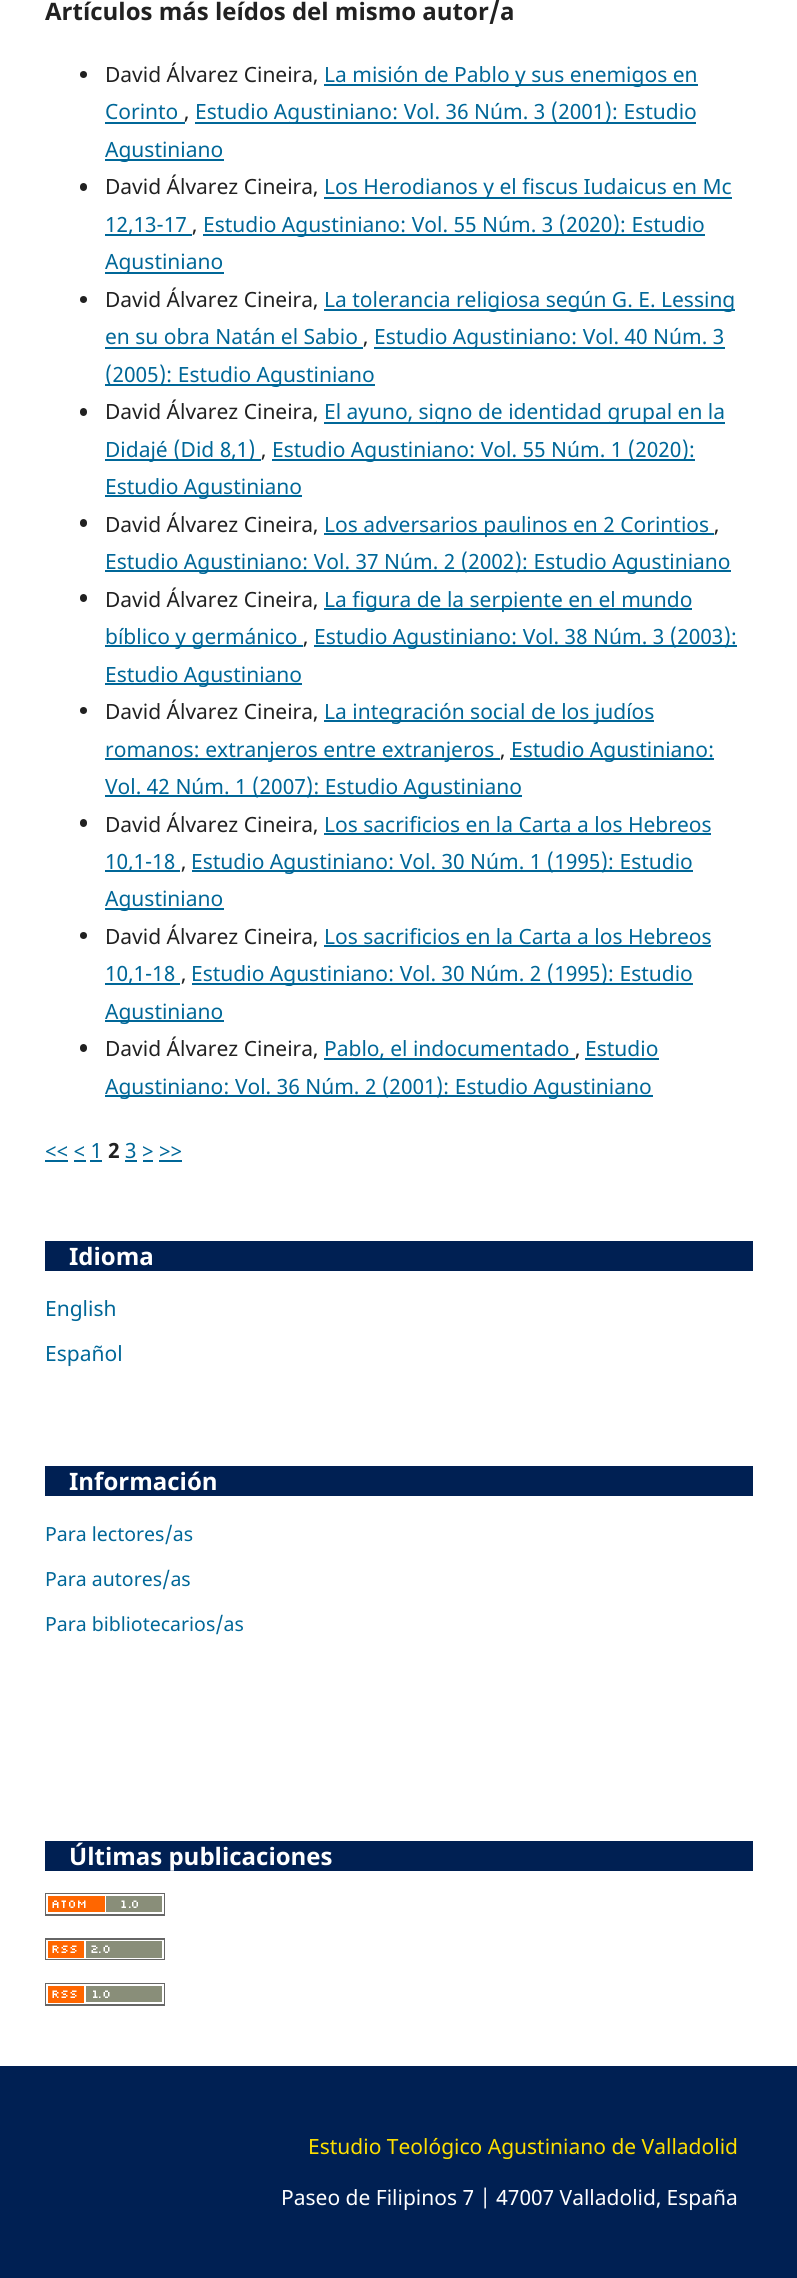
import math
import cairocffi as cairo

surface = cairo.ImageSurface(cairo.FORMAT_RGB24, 797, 2278)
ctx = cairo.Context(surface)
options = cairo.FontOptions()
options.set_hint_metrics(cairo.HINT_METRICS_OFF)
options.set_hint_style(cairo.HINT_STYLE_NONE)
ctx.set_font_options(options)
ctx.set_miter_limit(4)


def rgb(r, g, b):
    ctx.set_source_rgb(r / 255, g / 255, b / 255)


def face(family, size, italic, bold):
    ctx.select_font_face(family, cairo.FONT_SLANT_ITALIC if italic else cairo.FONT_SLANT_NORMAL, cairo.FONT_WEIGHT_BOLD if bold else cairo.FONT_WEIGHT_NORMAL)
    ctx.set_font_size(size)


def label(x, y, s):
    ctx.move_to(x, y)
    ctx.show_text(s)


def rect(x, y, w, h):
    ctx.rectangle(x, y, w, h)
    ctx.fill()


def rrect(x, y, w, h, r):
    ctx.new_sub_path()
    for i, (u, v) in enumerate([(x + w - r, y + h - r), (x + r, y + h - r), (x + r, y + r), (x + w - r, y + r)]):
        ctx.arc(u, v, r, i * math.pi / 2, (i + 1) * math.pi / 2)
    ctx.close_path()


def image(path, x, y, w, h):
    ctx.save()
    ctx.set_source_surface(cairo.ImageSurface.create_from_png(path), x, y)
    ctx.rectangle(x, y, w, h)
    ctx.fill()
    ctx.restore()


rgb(255, 255, 255)
ctx.paint()
face('Noto Sans', 24, 0, 1)
rgb(33, 33, 33)
label(45, 20, 'Artículos más leídos del mismo autor/a')
ctx.new_path()
ctx.arc(83.5, 74.5, 3.5, 0, 2 * math.pi)
ctx.fill()
face('Noto Sans', 21, 0, 0)
label(105, 82, 'David Álvarez Cineira,')
rgb(0, 103, 152)
rect(324, 84, 374, 2)
label(324, 82, 'La misión de Pablo y sus enemigos en')
label(105, 119, 'Corinto')
rect(105, 122, 80, 2)
rgb(33, 33, 33)
label(184, 119, ',')
rgb(0, 103, 152)
rect(195, 122, 501, 2)
label(195, 119, 'Estudio Agustiniano: Vol. 36 Núm. 3 (2001): Estudio')
rect(105, 159, 119, 2)
label(105, 157, 'Agustiniano')
rgb(33, 33, 33)
rrect(80, 183, 7, 8, 3.5)
ctx.fill()
label(105, 194, 'David Álvarez Cineira,')
rgb(0, 103, 152)
rect(324, 197, 408, 2)
label(324, 194, 'Los Herodianos y el fiscus Iudaicus en Mc')
rect(105, 234, 87, 2)
label(105, 232, '12,13-17')
rgb(33, 33, 33)
label(192, 232, ',')
rgb(0, 103, 152)
rect(203, 234, 502, 2)
label(203, 232, 'Estudio Agustiniano: Vol. 55 Núm. 3 (2020): Estudio')
rect(105, 272, 119, 2)
label(105, 269, 'Agustiniano')
rgb(33, 33, 33)
ctx.new_path()
ctx.arc(83.5, 299.5, 3.5, 0, 2 * math.pi)
ctx.fill()
label(105, 307, 'David Álvarez Cineira,')
rgb(0, 103, 152)
rect(324, 309, 411, 2)
label(324, 307, 'La tolerancia religiosa según G. E. Lessing')
label(105, 344, 'en su obra Natán el Sabio')
rect(105, 347, 258, 2)
rgb(33, 33, 33)
label(363, 344, ',')
rgb(0, 103, 152)
rect(374, 347, 351, 2)
label(374, 344, 'Estudio Agustiniano: Vol. 40 Núm. 3')
rect(105, 384, 270, 2)
label(105, 382, '(2005): Estudio Agustiniano')
rgb(33, 33, 33)
rrect(80, 408, 7, 8, 3.5)
ctx.fill()
label(105, 419, 'David Álvarez Cineira,')
rgb(0, 103, 152)
rect(324, 422, 401, 2)
label(324, 419, 'El ayuno, signo de identidad grupal en la')
rect(105, 459, 156, 2)
label(105, 457, 'Didajé (Did 8,1)')
rgb(33, 33, 33)
label(261, 457, ',')
rgb(0, 103, 152)
rect(272, 459, 423, 2)
label(272, 457, 'Estudio Agustiniano: Vol. 55 Núm. 1 (2020):')
rect(105, 495, 197, 2)
label(105, 494, 'Estudio Agustiniano')
rgb(33, 33, 33)
rrect(80, 519, 7, 8, 3.5)
ctx.fill()
label(105, 532, 'David Álvarez Cineira,')
rgb(0, 103, 152)
rect(324, 533, 390, 2)
label(324, 532, 'Los adversarios paulinos en 2 Corintios')
rgb(33, 33, 33)
label(714, 532, ',')
rgb(0, 103, 152)
rect(105, 570, 626, 2)
label(105, 569, 'Estudio Agustiniano: Vol. 37 Núm. 2 (2002): Estudio Agustiniano')
rgb(33, 33, 33)
rrect(80, 594, 7, 8, 3.5)
ctx.fill()
label(105, 607, 'David Álvarez Cineira,')
rgb(0, 103, 152)
rect(324, 608, 368, 2)
label(324, 607, 'La figura de la serpiente en el mundo')
rect(105, 645, 198, 2)
label(105, 644, 'bíblico y germánico')
rgb(33, 33, 33)
label(303, 644, ',')
rgb(0, 103, 152)
rect(314, 645, 423, 2)
label(314, 644, 'Estudio Agustiniano: Vol. 38 Núm. 3 (2003):')
rect(105, 683, 197, 2)
label(105, 682, 'Estudio Agustiniano')
rgb(33, 33, 33)
ctx.new_path()
ctx.arc(83.5, 710.5, 3.5, 0, 2 * math.pi)
ctx.fill()
label(105, 719, 'David Álvarez Cineira,')
rgb(0, 103, 152)
rect(324, 720, 330, 2)
label(324, 719, 'La integración social de los judíos')
rect(105, 758, 395, 2)
label(105, 757, 'romanos: extranjeros entre extranjeros')
rgb(33, 33, 33)
label(500, 757, ',')
rgb(0, 103, 152)
rect(510, 758, 204, 2)
label(511, 757, 'Estudio Agustiniano:')
rect(105, 795, 417, 2)
label(105, 794, 'Vol. 42 Núm. 1 (2007): Estudio Agustiniano')
rgb(33, 33, 33)
rrect(80, 819, 7, 8, 3.5)
ctx.fill()
label(105, 832, 'David Álvarez Cineira,')
rgb(0, 103, 152)
label(324, 832, 'Los sacrificios en la Carta a los Hebreos')
rect(324, 833, 387, 2)
rect(105, 870, 75, 2)
label(105, 869, '10,1-18')
rgb(33, 33, 33)
label(181, 869, ',')
rgb(0, 103, 152)
rect(192, 870, 501, 2)
label(191, 869, 'Estudio Agustiniano: Vol. 30 Núm. 1 (1995): Estudio')
rect(105, 908, 119, 2)
label(105, 906, 'Agustiniano')
rgb(33, 33, 33)
ctx.new_path()
ctx.arc(83.5, 935.5, 3.5, 0, 2 * math.pi)
ctx.fill()
label(105, 944, 'David Álvarez Cineira,')
rgb(0, 103, 152)
label(324, 944, 'Los sacrificios en la Carta a los Hebreos')
rect(324, 945, 387, 2)
rect(105, 983, 75, 2)
label(105, 981, '10,1-18')
rgb(33, 33, 33)
label(181, 981, ',')
rgb(0, 103, 152)
rect(192, 983, 501, 2)
label(191, 981, 'Estudio Agustiniano: Vol. 30 Núm. 2 (1995): Estudio')
rect(105, 1020, 119, 2)
label(105, 1019, 'Agustiniano')
rgb(33, 33, 33)
rrect(80, 1044, 7, 8, 3.5)
ctx.fill()
label(105, 1056, 'David Álvarez Cineira,')
rgb(0, 103, 152)
rect(324, 1058, 251, 2)
label(324, 1056, 'Pablo, el indocumentado')
label(585, 1056, 'Estudio')
rect(585, 1058, 74, 2)
rgb(33, 33, 33)
label(575, 1056, ',')
rgb(0, 103, 152)
rect(105, 1095, 548, 2)
label(105, 1094, 'Agustiniano: Vol. 36 Núm. 2 (2001): Estudio Agustiniano')
label(45, 1158, '<< < 1')
rect(45, 1160, 23, 2)
face('Noto Sans', 21, 0, 1)
rgb(33, 33, 33)
label(108, 1158, '2')
face('Noto Sans', 21, 0, 0)
rgb(0, 103, 152)
label(125, 1158, '3 > >>')
rect(125, 1160, 12, 2)
rect(74, 1160, 12, 2)
rect(90, 1160, 12, 2)
rect(143, 1160, 10, 2)
rect(159, 1160, 23, 2)
rgb(0, 32, 83)
rect(45, 1241, 708, 30)
face('Noto Sans', 24, 0, 1)
rgb(255, 255, 255)
label(69, 1265, 'Idioma')
face('Noto Sans', 21, 0, 0)
rgb(0, 103, 152)
label(45, 1316, 'English')
label(45, 1361, 'Español')
rgb(0, 32, 83)
rect(45, 1466, 708, 30)
face('Noto Sans', 24, 0, 1)
rgb(255, 255, 255)
label(69, 1490, 'Información')
face('Noto Sans', 19.5, 0, 0)
rgb(0, 103, 152)
label(45, 1541, 'Para lectores/as')
label(45, 1586, 'Para autores/as')
label(45, 1631, 'Para bibliotecarios/as')
rgb(0, 32, 83)
rect(45, 1841, 708, 30)
face('Noto Sans', 24, 0, 1)
rgb(255, 255, 255)
label(69, 1865, 'Últimas publicaciones')
image('image0.png', 45, 1893, 120, 23)
image('image1.png', 45, 1938, 120, 22)
image('image2.png', 45, 1983, 120, 23)
rgb(0, 32, 83)
rect(0, 2066, 797, 212)
face('Noto Sans', 21, 0, 0)
rgb(254, 223, 0)
label(308, 2154, 'Estudio Teológico Agustiniano de Valladolid')
rgb(255, 255, 255)
label(281, 2205, 'Paseo de Filipinos 7 | 47007 Valladolid, España')
surface.write_to_png('render.png')
